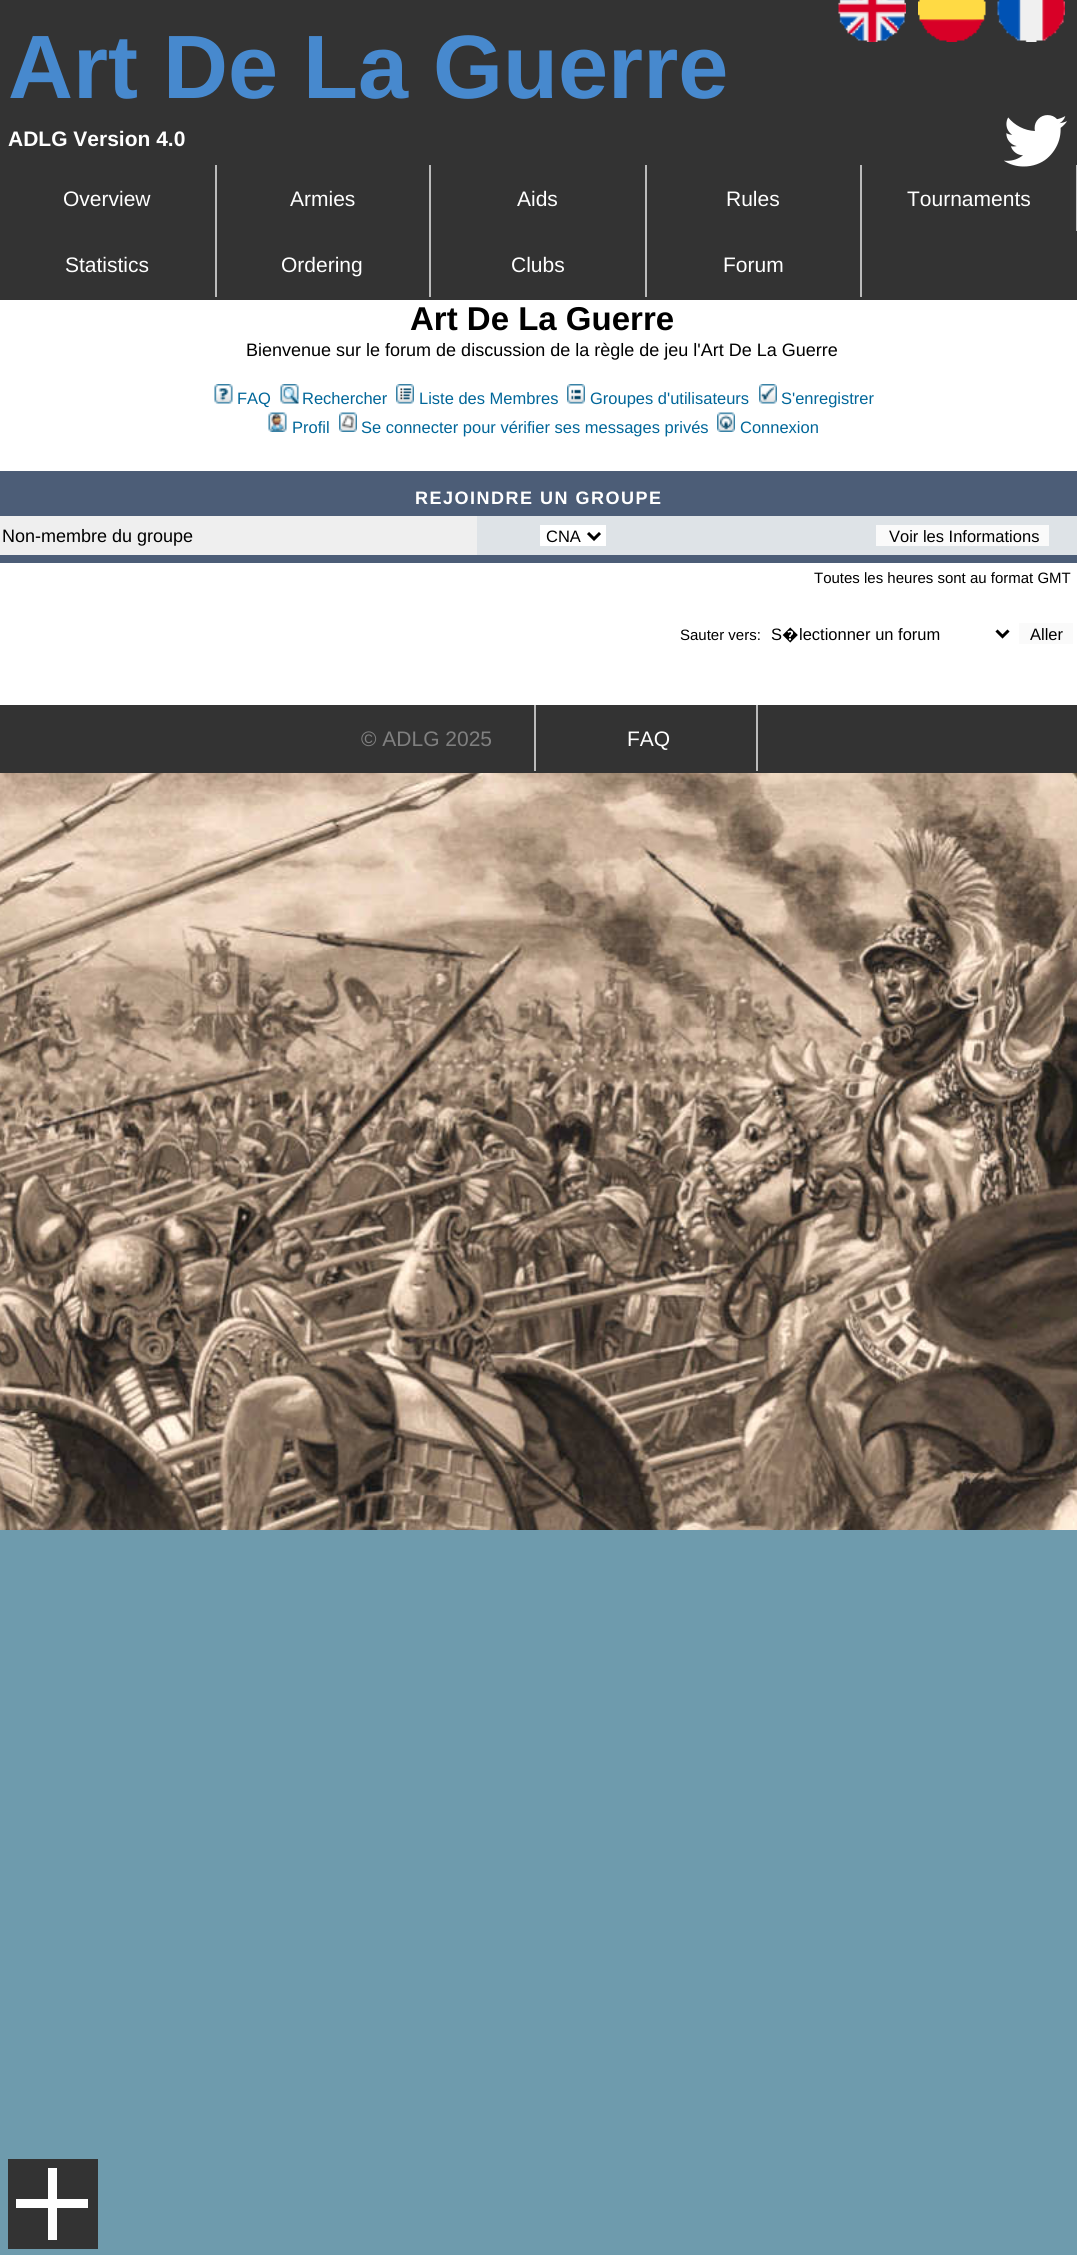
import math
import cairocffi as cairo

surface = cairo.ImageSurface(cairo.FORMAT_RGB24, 1077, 2255)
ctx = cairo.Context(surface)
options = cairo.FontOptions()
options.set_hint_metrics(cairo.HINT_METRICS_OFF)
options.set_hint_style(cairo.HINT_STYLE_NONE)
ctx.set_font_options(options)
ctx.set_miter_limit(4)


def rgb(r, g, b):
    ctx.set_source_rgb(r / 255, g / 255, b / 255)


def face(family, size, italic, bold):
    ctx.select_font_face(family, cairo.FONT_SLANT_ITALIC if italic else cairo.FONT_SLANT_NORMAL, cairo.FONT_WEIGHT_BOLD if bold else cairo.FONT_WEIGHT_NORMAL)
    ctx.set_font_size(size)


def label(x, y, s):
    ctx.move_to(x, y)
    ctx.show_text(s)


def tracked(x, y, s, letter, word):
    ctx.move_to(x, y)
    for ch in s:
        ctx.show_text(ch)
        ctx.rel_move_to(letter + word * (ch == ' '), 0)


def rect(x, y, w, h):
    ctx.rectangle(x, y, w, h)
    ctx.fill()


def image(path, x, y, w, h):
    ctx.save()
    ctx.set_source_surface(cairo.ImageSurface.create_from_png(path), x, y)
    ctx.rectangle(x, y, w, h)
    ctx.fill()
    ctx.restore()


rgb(110, 155, 173)
ctx.paint()
rgb(51, 51, 51)
rect(0, 0, 1077, 300)
image('image0.png', 838, 0, 68, 42)
image('image1.png', 918, 0, 68, 42)
image('image2.png', 997, 0, 68, 42)
face('Liberation Sans', 90, 0, 1)
rgb(71, 137, 206)
label(8, 98, 'Art De La Guerre')
face('Liberation Sans', 21, 0, 1)
rgb(255, 255, 255)
label(8, 146, 'ADLG Version 4.0')
image('image3.png', 1004, 115, 63, 52)
rgb(187, 187, 187)
rect(215, 165, 2, 132)
face('Liberation Sans', 21, 0, 0)
rgb(255, 255, 255)
label(63, 206, 'Overview')
rgb(187, 187, 187)
rect(429, 165, 2, 132)
rgb(255, 255, 255)
label(290, 206, 'Armies')
rgb(187, 187, 187)
rect(645, 165, 2, 132)
rgb(255, 255, 255)
label(517, 206, 'Aids')
rgb(187, 187, 187)
rect(860, 165, 2, 132)
rgb(255, 255, 255)
label(726, 206, 'Rules')
rgb(187, 187, 187)
rect(1076, 165, 1, 66)
rgb(255, 255, 255)
label(907, 206, 'Tournaments')
label(65, 272, 'Statistics')
label(281, 272, 'Ordering')
label(511, 272, 'Clubs')
label(723, 272, 'Forum')
rect(0, 300, 1077, 405)
face('Liberation Sans', 33, 0, 1)
rgb(0, 0, 0)
label(410, 330, 'Art De La Guerre')
face('Liberation Sans', 18, 0, 0)
label(246, 356, 'Bienvenue sur le forum de discussion de la règle de jeu l\'Art De La Guerre')
image('image4.png', 214, 384, 19, 20)
face('Liberation Sans', 16.5, 0, 0)
rgb(0, 102, 153)
label(237, 404, 'FAQ')
image('image5.png', 280, 384, 19, 20)
label(302, 404, 'Rechercher')
image('image6.png', 396, 384, 18, 20)
label(419, 404, 'Liste des Membres')
image('image7.png', 567, 384, 18, 20)
label(590, 404, 'Groupes d\'utilisateurs')
image('image8.png', 759, 384, 18, 20)
label(781, 404, 'S\'enregistrer')
image('image9.png', 268, 412, 19, 20)
label(292, 433, 'Profil')
image('image10.png', 339, 412, 18, 20)
label(361, 433, 'Se connecter pour vérifier ses messages privés')
image('image11.png', 717, 412, 18, 20)
label(740, 433, 'Connexion')
rgb(76, 93, 119)
rect(0, 471, 1077, 45)
rect(0, 555, 1077, 8)
face('Liberation Sans', 18, 0, 1)
rgb(255, 255, 255)
tracked(415, 504, 'REJOINDRE UN GROUPE', 1.5, 0)
rgb(239, 239, 239)
rect(0, 516, 477, 39)
face('Liberation Sans', 18, 0, 0)
rgb(0, 0, 0)
label(2, 542, 'Non-membre du groupe')
rgb(222, 227, 231)
rect(477, 516, 600, 39)
rgb(255, 255, 255)
rect(540, 525, 66, 21)
ctx.new_path()
ctx.move_to(588, 533)
ctx.line_to(594, 539)
ctx.line_to(600, 533)
rgb(0, 0, 0)
ctx.set_line_width(3)
ctx.stroke()
face('Liberation Sans', 16.5, 0, 0)
label(546, 542, 'CNA')
rgb(250, 250, 250)
rect(876, 525, 173, 21)
rgb(0, 0, 0)
label(889, 542, 'Voir les Informations')
face('Liberation Sans', 15, 0, 0)
label(814, 583, 'Toutes les heures sont au format GMT')
label(680, 640, 'Sauter vers:')
ctx.new_path()
ctx.move_to(996.5, 630.5)
ctx.line_to(1002.5, 636.5)
ctx.line_to(1008.5, 630.5)
ctx.stroke()
face('Liberation Sans', 16.5, 0, 0)
label(771, 640, 'S')
face('Noto Sans', 16.5, 0, 0)
label(782, 640, '�')
face('Liberation Sans', 16.5, 0, 0)
label(799, 640, 'lectionner un forum')
rgb(250, 250, 250)
rect(1019, 623, 54, 21)
rgb(0, 0, 0)
label(1030, 640, 'Aller')
image('image12.png', 0, 773, 1077, 757)
rgb(51, 51, 51)
rect(0, 705, 1077, 68)
rgb(187, 187, 187)
rect(534, 705, 2, 66)
face('Liberation Sans', 21, 0, 0)
rgb(128, 128, 128)
label(361, 746, '© ADLG 2025')
rgb(187, 187, 187)
rect(756, 705, 2, 66)
rgb(255, 255, 255)
label(627, 746, 'FAQ')
rgb(51, 51, 51)
rect(8, 2159, 90, 90)
rgb(255, 255, 255)
rect(48, 2168, 9, 72)
rect(16, 2199, 72, 9)
surface.write_to_png('render.png')
